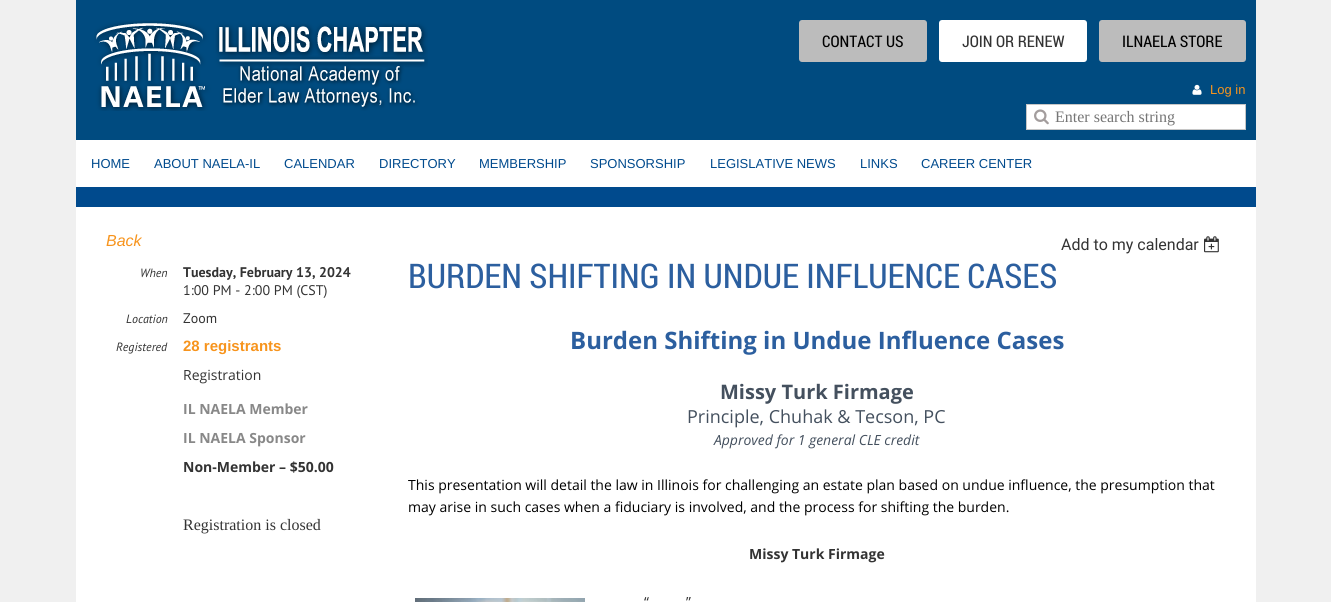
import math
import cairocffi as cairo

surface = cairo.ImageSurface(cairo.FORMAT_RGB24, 1331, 602)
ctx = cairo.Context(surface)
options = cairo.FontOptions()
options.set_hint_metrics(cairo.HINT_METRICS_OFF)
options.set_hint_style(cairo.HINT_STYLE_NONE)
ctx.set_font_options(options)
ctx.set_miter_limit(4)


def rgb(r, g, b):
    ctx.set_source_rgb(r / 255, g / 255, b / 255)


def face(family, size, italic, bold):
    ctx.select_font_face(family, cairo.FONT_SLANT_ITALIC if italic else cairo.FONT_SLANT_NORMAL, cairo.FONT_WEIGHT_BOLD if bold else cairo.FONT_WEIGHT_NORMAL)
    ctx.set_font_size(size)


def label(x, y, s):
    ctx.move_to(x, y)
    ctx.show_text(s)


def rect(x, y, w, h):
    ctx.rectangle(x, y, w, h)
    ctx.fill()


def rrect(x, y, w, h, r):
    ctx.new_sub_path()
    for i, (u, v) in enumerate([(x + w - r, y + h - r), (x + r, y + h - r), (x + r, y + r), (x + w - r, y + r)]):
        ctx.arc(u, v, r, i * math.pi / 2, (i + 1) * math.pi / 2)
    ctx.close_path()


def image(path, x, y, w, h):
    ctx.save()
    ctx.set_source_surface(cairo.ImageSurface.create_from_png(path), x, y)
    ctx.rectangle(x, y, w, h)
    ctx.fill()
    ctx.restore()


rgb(240, 240, 240)
ctx.paint()
rgb(0, 75, 128)
rect(76, 0, 1180, 140)
image('image0.png', 94, 20, 334, 91)
rgb(188, 188, 188)
rrect(799, 20, 128, 42, 3)
ctx.fill()
face('Roboto Condensed', 16, 0, 0)
rgb(0, 0, 0)
label(822, 47, 'CONTACT US')
rgb(255, 255, 255)
rrect(939, 20, 148, 42, 3)
ctx.fill()
rgb(51, 51, 51)
label(962, 47, 'JOIN OR RENEW')
rgb(188, 188, 188)
rrect(1099, 20, 147, 42, 3)
ctx.fill()
rgb(0, 0, 0)
label(1122, 47, 'ILNAELA STORE')
image('image1.png', 1192, 84, 10, 11)
face('Liberation Sans', 13, 0, 0)
rgb(247, 148, 29)
label(1210, 94, 'Log in')
rgb(255, 255, 255)
ctx.rectangle(1026.5, 104.5, 219, 25)
ctx.fill_preserve()
rgb(198, 198, 198)
ctx.set_line_width(1)
ctx.stroke()
image('image2.png', 1034, 109, 15, 16)
face('Liberation Serif', 16, 0, 0)
rgb(117, 117, 117)
label(1055, 122, 'Enter search string')
rgb(255, 255, 255)
rect(76, 140, 1180, 47)
face('Liberation Sans', 13, 0, 0)
rgb(0, 74, 141)
label(91, 168, 'HOME')
label(154, 168, 'ABOUT NAELA-IL')
label(284, 168, 'CALENDAR')
label(379, 168, 'DIRECTORY')
label(479, 168, 'MEMBERSHIP')
label(590, 168, 'SPONSORSHIP')
label(710, 168, 'LEGISLATIVE NEWS')
label(860, 168, 'LINKS')
label(921, 168, 'CAREER CENTER')
rect(76, 187, 1180, 20)
rgb(255, 255, 255)
rect(76, 207, 1180, 395)
face('Liberation Sans', 16, 1, 0)
rgb(247, 148, 29)
label(106, 246, 'Back')
face('Roboto', 16, 0, 0)
rgb(51, 51, 51)
label(1061, 250, 'Add to my calendar')
image('image3.png', 1204, 236, 15, 17)
face('Roboto Condensed', 34, 0, 0)
rgb(44, 95, 159)
label(408, 288, 'BURDEN SHIFTING IN UNDUE INFLUENCE CASES')
face('PT Sans', 12, 1, 0)
rgb(51, 51, 51)
label(140, 277, 'When')
face('PT Sans', 14, 0, 1)
label(183, 277, 'Tuesday, February 13, 2024')
face('PT Sans', 14, 0, 0)
label(183, 295, '1:00 PM - 2:00 PM (CST)')
face('PT Sans', 12, 1, 0)
label(126, 323, 'Location')
face('PT Sans', 14, 0, 0)
label(183, 323, 'Zoom')
face('PT Sans', 12, 1, 0)
label(116, 351, 'Registered')
face('Liberation Sans', 15, 0, 1)
rgb(247, 148, 29)
label(183, 351, '28 registrants')
face('Open Sans', 14, 0, 0)
rgb(51, 51, 51)
label(183, 380, 'Registration')
face('Open Sans', 14, 0, 1)
rgb(136, 136, 136)
label(183, 414, 'IL NAELA Member')
label(183, 443, 'IL NAELA Sponsor')
rgb(51, 51, 51)
label(183, 472, 'Non-Member – $50.00')
face('Liberation Serif', 16, 0, 0)
label(183, 530, 'Registration is closed')
face('Open Sans', 24, 0, 1)
rgb(44, 95, 159)
label(570, 349, 'Burden Shifting in Undue Influence Cases')
face('Open Sans', 20, 0, 1)
rgb(68, 80, 94)
label(720, 399, 'Missy Turk Firmage')
face('Open Sans', 18, 0, 0)
label(687, 423, 'Principle, Chuhak & Tecson, PC')
face('Open Sans', 14, 1, 0)
label(714, 445, 'Approved for 1 general CLE credit')
face('Open Sans', 14, 0, 0)
rgb(0, 0, 0)
label(408, 490, 'This presentation will detail the law in Illinois for challenging an estate plan based on undue influence, the presumption that')
label(408, 512, 'may arise in such cases when a fiduciary is involved, and the process for shifting the burden.')
face('Open Sans', 14, 0, 1)
rgb(51, 51, 51)
label(749, 559, 'Missy Turk Firmage')
image('image4.png', 415, 598, 170, 4)
face('Open Sans', 14, 0, 0)
label(644, 607, '“')
label(686, 607, '”')
surface.write_to_png('render.png')
